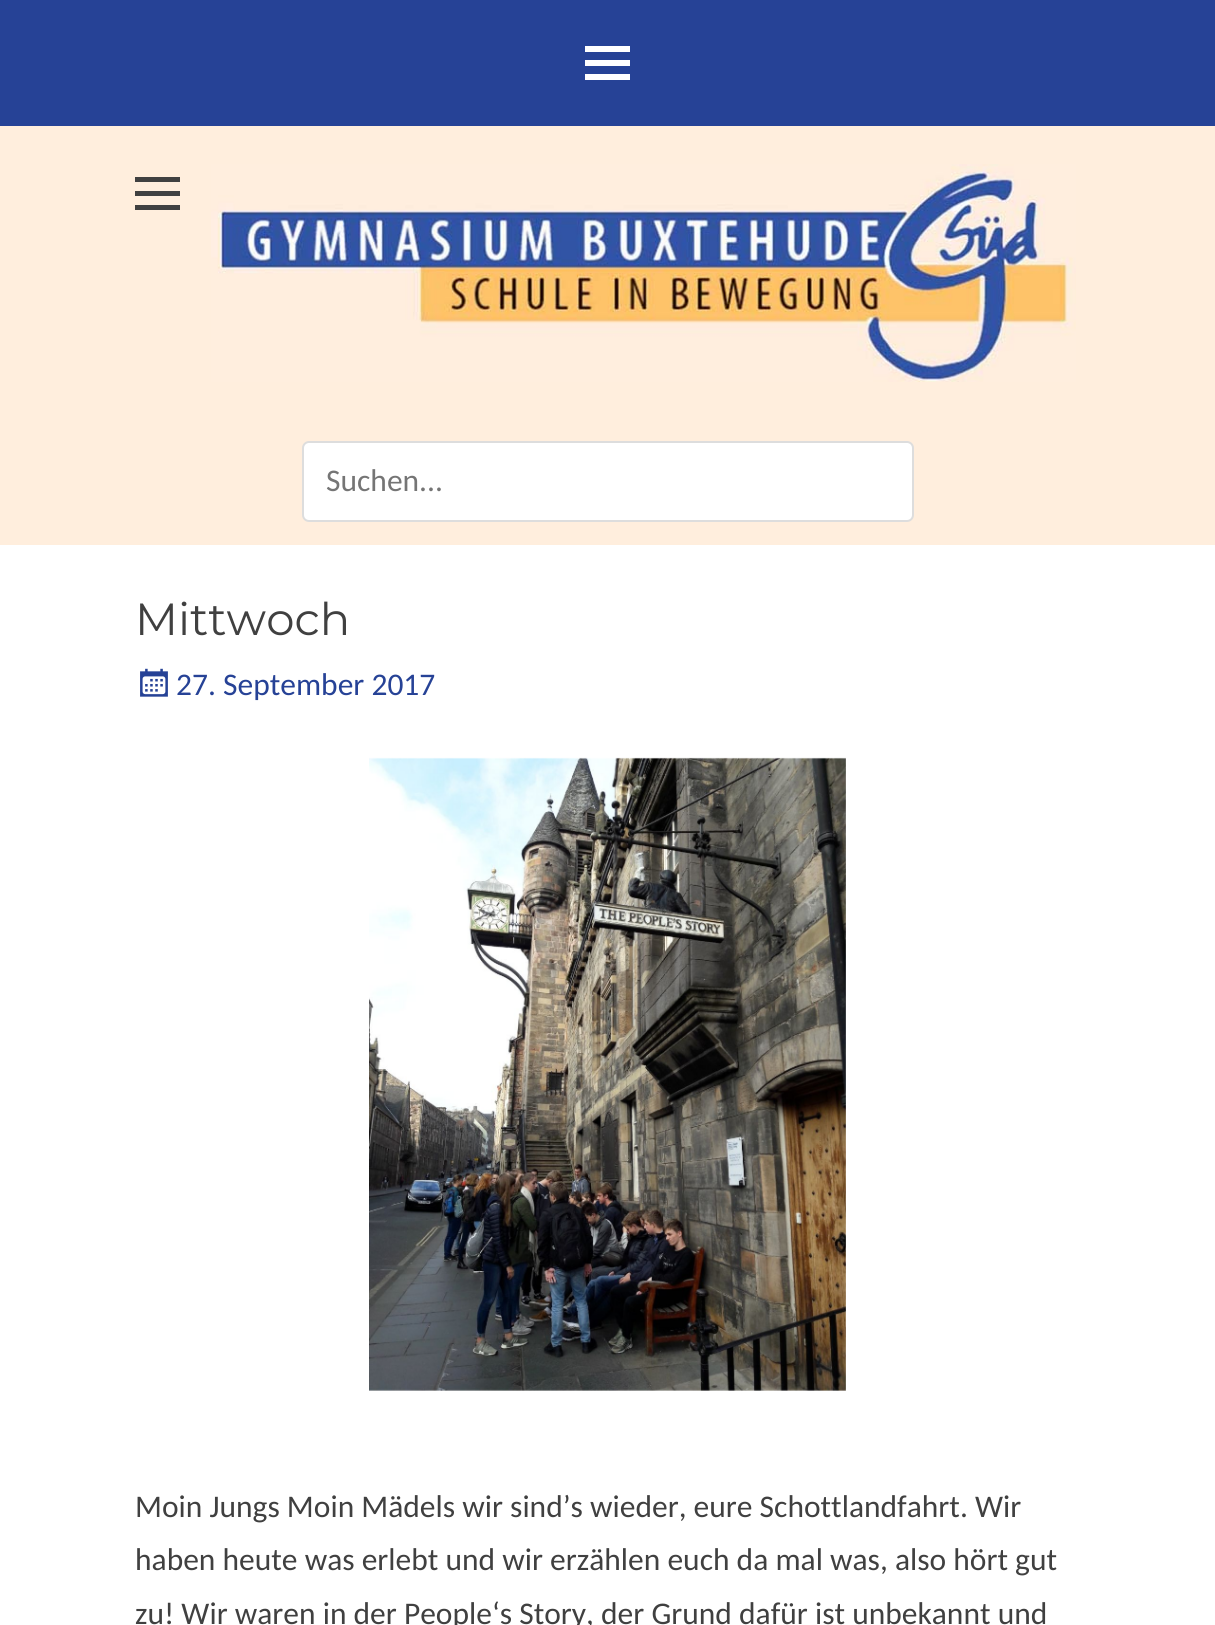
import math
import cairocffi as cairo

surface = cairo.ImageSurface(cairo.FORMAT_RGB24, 1215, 1625)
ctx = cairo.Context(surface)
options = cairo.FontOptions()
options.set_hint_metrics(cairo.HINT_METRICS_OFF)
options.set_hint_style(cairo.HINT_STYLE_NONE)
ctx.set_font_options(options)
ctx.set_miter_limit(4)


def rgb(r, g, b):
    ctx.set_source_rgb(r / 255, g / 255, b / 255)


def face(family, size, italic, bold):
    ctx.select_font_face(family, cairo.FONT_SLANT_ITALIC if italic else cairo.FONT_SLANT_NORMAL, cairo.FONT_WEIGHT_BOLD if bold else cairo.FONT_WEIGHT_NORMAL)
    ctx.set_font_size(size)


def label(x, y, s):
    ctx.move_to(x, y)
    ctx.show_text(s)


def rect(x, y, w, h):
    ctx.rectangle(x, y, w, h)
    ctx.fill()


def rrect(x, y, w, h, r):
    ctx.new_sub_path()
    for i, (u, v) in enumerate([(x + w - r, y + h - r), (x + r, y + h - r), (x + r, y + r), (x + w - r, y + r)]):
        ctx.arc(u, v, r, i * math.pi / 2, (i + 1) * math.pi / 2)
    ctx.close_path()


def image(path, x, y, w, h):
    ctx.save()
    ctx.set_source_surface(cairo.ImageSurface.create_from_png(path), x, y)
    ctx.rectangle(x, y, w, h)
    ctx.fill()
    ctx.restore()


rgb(38, 66, 150)
ctx.paint()
rgb(255, 255, 255)
ctx.new_path()
ctx.move_to(585, 80)
ctx.line_to(585, 74)
ctx.line_to(630, 74)
ctx.line_to(630, 80)
ctx.close_path()
ctx.move_to(585, 46)
ctx.line_to(630, 46)
ctx.line_to(630, 52)
ctx.line_to(585, 52)
ctx.close_path()
ctx.move_to(585, 66)
ctx.line_to(585, 60)
ctx.line_to(630, 60)
ctx.line_to(630, 66)
ctx.close_path()
ctx.fill()
rgb(255, 238, 221)
rect(0, 126, 1215, 419)
rgb(64, 64, 64)
ctx.new_path()
ctx.move_to(135, 210)
ctx.line_to(135, 205)
ctx.line_to(180, 205)
ctx.line_to(180, 210)
ctx.close_path()
ctx.move_to(135, 177)
ctx.line_to(180, 177)
ctx.line_to(180, 182)
ctx.line_to(135, 182)
ctx.close_path()
ctx.move_to(135, 196)
ctx.line_to(135, 191)
ctx.line_to(180, 191)
ctx.line_to(180, 196)
ctx.close_path()
ctx.fill()
image('image0.png', 211, 164, 865, 218)
rgb(255, 255, 255)
rrect(303, 442, 610, 79, 6)
ctx.fill_preserve()
rgb(221, 221, 221)
ctx.stroke()
face('Carlito', 31.5, 0, 0)
rgb(117, 117, 117)
label(326, 491, 'Suchen...')
rgb(255, 255, 255)
rect(0, 545, 1215, 1080)
face('Montserrat', 45, 0, 0)
rgb(64, 64, 64)
label(135, 635, 'Mittwoch')
image('image1.png', 140, 668, 28, 29)
face('Carlito', 31.5, 0, 0)
rgb(38, 66, 150)
label(176, 695, '27. September 2017')
image('image2.png', 369, 757, 477, 634)
rgb(64, 64, 64)
label(135, 1517, 'Moin Jungs Moin Mädels wir sind’s wieder, eure Schottlandfahrt. Wir')
label(135, 1570, 'haben heute was erlebt und wir erzählen euch da mal was, also hört gut')
label(135, 1624, 'zu! Wir waren in der People‘s Story, der Grund dafür ist unbekannt und')
surface.write_to_png('render.png')
